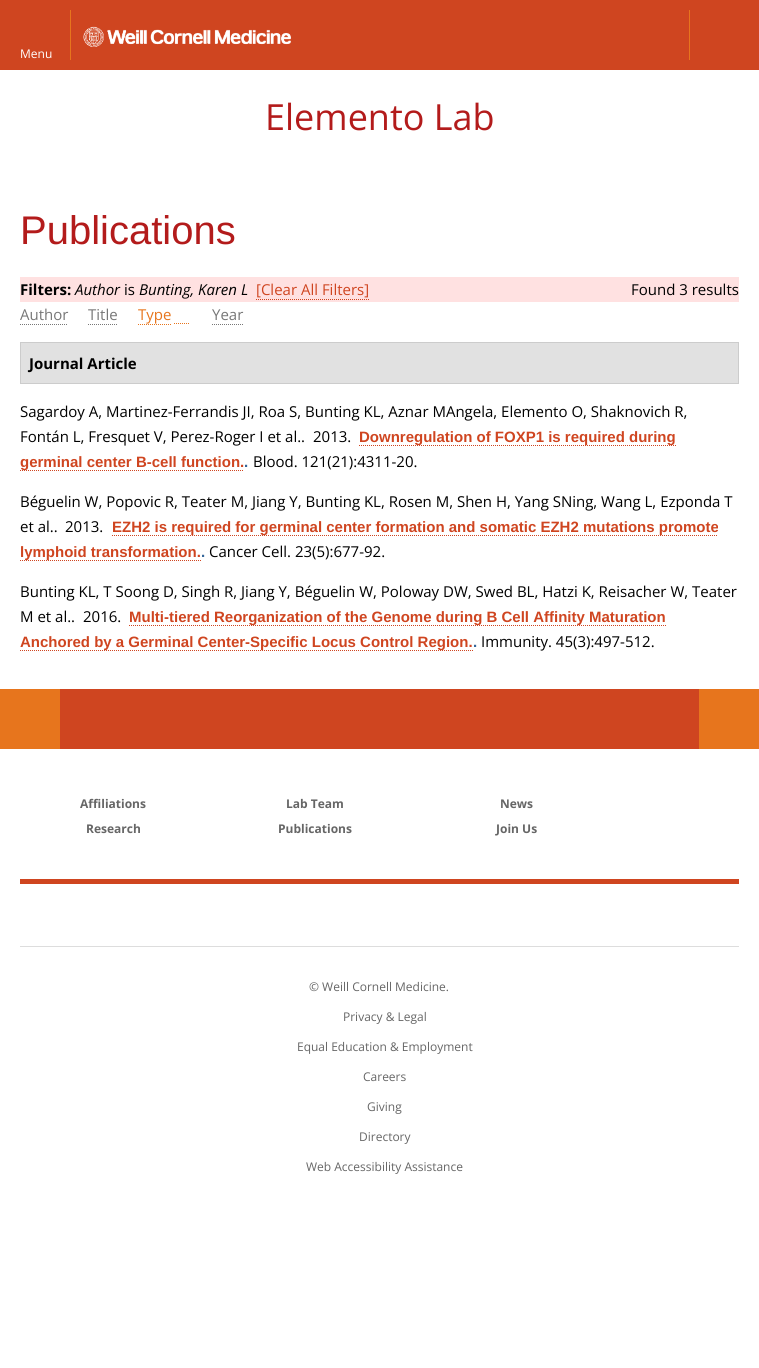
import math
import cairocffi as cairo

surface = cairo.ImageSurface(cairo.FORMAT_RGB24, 759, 1368)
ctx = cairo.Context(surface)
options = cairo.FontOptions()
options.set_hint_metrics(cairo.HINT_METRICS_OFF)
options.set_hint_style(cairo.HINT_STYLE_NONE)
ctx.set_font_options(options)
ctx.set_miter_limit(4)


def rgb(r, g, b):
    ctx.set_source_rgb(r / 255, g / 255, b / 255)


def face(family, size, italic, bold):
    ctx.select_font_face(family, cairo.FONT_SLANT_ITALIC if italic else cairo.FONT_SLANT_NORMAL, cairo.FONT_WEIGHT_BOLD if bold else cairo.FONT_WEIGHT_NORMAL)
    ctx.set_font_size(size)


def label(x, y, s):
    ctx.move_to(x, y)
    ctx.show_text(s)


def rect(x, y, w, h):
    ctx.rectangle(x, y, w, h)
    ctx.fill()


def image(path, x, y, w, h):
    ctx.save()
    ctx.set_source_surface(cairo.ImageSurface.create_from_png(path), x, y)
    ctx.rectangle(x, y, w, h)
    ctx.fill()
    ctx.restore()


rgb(255, 255, 255)
ctx.paint()
rgb(207, 69, 32)
rect(0, 0, 759, 70)
image('image0.png', 83, 26, 208, 21)
rgb(231, 117, 29)
rect(689, 10, 1, 50)
rect(70, 10, 1, 50)
face('Open Sans', 12, 0, 0)
rgb(255, 255, 255)
label(20, 58, 'Menu')
face('Open Sans', 36, 0, 0)
rgb(179, 27, 27)
label(265, 130, 'Elemento Lab')
face('Liberation Sans', 40, 0, 0)
label(20, 244, 'Publications')
rgb(255, 225, 225)
rect(20, 277, 719, 25)
face('Open Sans', 15, 0, 1)
rgb(0, 0, 0)
label(20, 295, 'Filters:')
face('Open Sans', 15, 1, 0)
label(75, 295, 'Author')
face('Open Sans', 15, 0, 0)
label(124, 295, 'is')
face('Open Sans', 15, 1, 0)
label(139, 295, 'Bunting, Karen L')
face('Open Sans', 15, 0, 0)
rgb(207, 69, 32)
label(256, 295, '[Clear All Filters]')
ctx.new_path()
ctx.move_to(256, 299.5)
ctx.line_to(369, 299.5)
ctx.set_line_width(1)
ctx.set_dash([1, 1])
ctx.stroke()
rgb(0, 0, 0)
label(631, 295, 'Found 3 results')
rgb(119, 119, 119)
label(20, 320, 'Author')
ctx.new_path()
ctx.move_to(20, 324.5)
ctx.line_to(68, 324.5)
ctx.stroke()
label(88, 320, 'Title')
ctx.new_path()
ctx.move_to(88, 324.5)
ctx.line_to(118, 324.5)
ctx.stroke()
ctx.new_path()
ctx.move_to(138, 324.5)
ctx.line_to(171, 324.5)
ctx.move_to(174, 323.5)
ctx.line_to(189, 323.5)
rgb(231, 117, 29)
ctx.stroke()
label(138, 320, 'Type')
rgb(119, 119, 119)
label(212, 320, 'Year')
ctx.new_path()
ctx.move_to(212, 324.5)
ctx.line_to(244, 324.5)
ctx.stroke()
rgb(225, 225, 225)
ctx.rectangle(20.5, 342.5, 718, 41)
ctx.fill_preserve()
rgb(204, 204, 204)
ctx.set_dash([])
ctx.stroke()
face('Open Sans', 15, 0, 1)
rgb(0, 0, 0)
label(29, 369, 'Journal Article')
face('Open Sans', 15, 0, 0)
label(20, 417, 'Sagardoy A, Martinez-Ferrandis JI, Roa S, Bunting KL, Aznar MAngela, Elemento O, Shaknovich R,')
label(20, 442, 'Fontán L, Fresquet V, Perez-Roger I et al..')
label(313, 442, '2013.')
ctx.new_path()
ctx.move_to(359, 445.5)
ctx.line_to(676, 445.5)
rgb(207, 69, 32)
ctx.set_dash([1, 1])
ctx.stroke()
face('Liberation Sans', 15, 0, 1)
label(359, 442, 'Downregulation of FOXP1 is required during')
ctx.new_path()
ctx.move_to(20, 470.5)
ctx.line_to(244, 470.5)
ctx.stroke()
label(20, 467, 'germinal center B-cell function.')
rgb(51, 101, 153)
label(244, 467, '.')
face('Open Sans', 15, 0, 0)
rgb(0, 0, 0)
label(253, 467, 'Blood. 121(21):4311-20.')
label(20, 507, 'Béguelin W, Popovic R, Teater M, Jiang Y, Bunting KL, Rosen M, Shen H, Yang SNing, Wang L, Ezponda T')
label(20, 532, 'et al..')
label(65, 532, '2013.')
ctx.new_path()
ctx.move_to(112, 535.5)
ctx.line_to(718, 535.5)
rgb(207, 69, 32)
ctx.stroke()
face('Liberation Sans', 15, 0, 1)
label(112, 532, 'EZH2 is required for germinal center formation and somatic EZH2 mutations promote')
ctx.new_path()
ctx.move_to(20, 560.5)
ctx.line_to(201, 560.5)
ctx.stroke()
label(20, 557, 'lymphoid transformation.')
rgb(51, 101, 153)
label(201, 557, '.')
face('Open Sans', 15, 0, 0)
rgb(0, 0, 0)
label(209, 557, 'Cancer Cell. 23(5):677-92.')
label(20, 597, 'Bunting KL, T Soong D, Singh R, Jiang Y, Béguelin W, Poloway DW, Swed BL, Hatzi K, Reisacher W, Teater')
label(20, 622, 'M et al..')
label(83, 622, '2016.')
ctx.new_path()
ctx.move_to(129, 625.5)
ctx.line_to(666, 625.5)
rgb(207, 69, 32)
ctx.stroke()
face('Liberation Sans', 15, 0, 1)
label(129, 622, 'Multi-tiered Reorganization of the Genome during B Cell Affinity Maturation')
ctx.new_path()
ctx.move_to(20, 650.5)
ctx.line_to(473, 650.5)
ctx.stroke()
label(20, 647, 'Anchored by a Germinal Center-Specific Locus Control Region.')
rgb(51, 101, 153)
label(473, 647, '.')
face('Open Sans', 15, 0, 0)
rgb(0, 0, 0)
label(481, 647, 'Immunity. 45(3):497-512.')
rgb(207, 69, 32)
rect(60, 689, 639, 60)
rgb(231, 117, 29)
rect(0, 689, 60, 60)
rect(699, 689, 60, 60)
face('Open Sans', 12, 0, 1)
rgb(102, 102, 102)
label(80, 808, 'Affiliations')
label(286, 808, 'Lab Team')
label(500, 808, 'News')
label(86, 833, 'Research')
label(278, 833, 'Publications')
label(496, 833, 'Join Us')
rgb(207, 69, 32)
rect(20, 879, 719, 5)
rgb(221, 221, 221)
rect(20, 946, 719, 1)
face('Open Sans', 12, 0, 0)
rgb(102, 102, 102)
label(309, 991, '© Weill Cornell Medicine.')
label(343, 1021, 'Privacy & Legal')
label(297, 1051, 'Equal Education & Employment')
label(363, 1081, 'Careers')
label(367, 1111, 'Giving')
label(359, 1141, 'Directory')
label(306, 1171, 'Web Accessibility Assistance')
surface.write_to_png('render.png')
